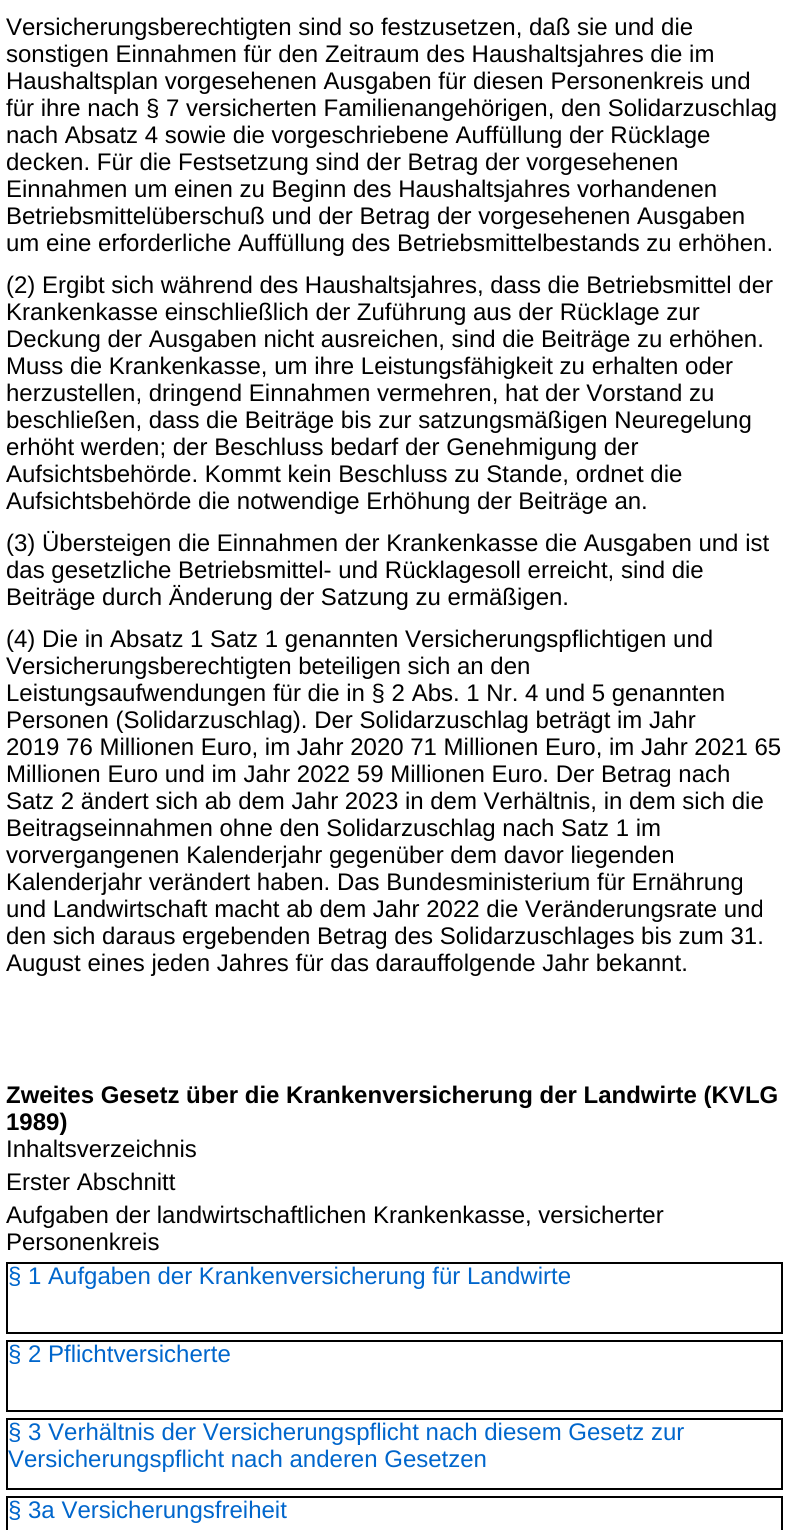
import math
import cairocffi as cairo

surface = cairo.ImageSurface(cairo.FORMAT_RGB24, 789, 1530)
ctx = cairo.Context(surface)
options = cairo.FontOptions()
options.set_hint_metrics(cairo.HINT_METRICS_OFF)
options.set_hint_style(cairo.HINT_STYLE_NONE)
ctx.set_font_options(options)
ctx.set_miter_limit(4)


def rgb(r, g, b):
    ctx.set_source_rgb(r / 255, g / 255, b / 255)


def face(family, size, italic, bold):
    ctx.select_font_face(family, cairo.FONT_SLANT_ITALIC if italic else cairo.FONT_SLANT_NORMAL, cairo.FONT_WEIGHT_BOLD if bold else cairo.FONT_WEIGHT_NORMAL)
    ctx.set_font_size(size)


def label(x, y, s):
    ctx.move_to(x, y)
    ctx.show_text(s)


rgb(255, 255, 255)
ctx.paint()
face('Liberation Sans', 24, 0, 0)
rgb(0, 0, 0)
label(6, 35, 'Versicherungsberechtigten sind so festzusetzen, daß sie und die')
label(6, 62, 'sonstigen Einnahmen für den Zeitraum des Haushaltsjahres die im')
label(6, 89, 'Haushaltsplan vorgesehenen Ausgaben für diesen Personenkreis und')
label(6, 116, 'für ihre nach § 7 versicherten Familienangehörigen, den Solidarzuschlag')
label(6, 143, 'nach Absatz 4 sowie die vorgeschriebene Auffüllung der Rücklage')
label(6, 170, 'decken. Für die Festsetzung sind der Betrag der vorgesehenen')
label(6, 197, 'Einnahmen um einen zu Beginn des Haushaltsjahres vorhandenen')
label(6, 224, 'Betriebsmittelüberschuß und der Betrag der vorgesehenen Ausgaben')
label(6, 251, 'um eine erforderliche Auffüllung des Betriebsmittelbestands zu erhöhen.')
label(6, 293, '(2) Ergibt sich während des Haushaltsjahres, dass die Betriebsmittel der')
label(6, 320, 'Krankenkasse einschließlich der Zuführung aus der Rücklage zur')
label(6, 347, 'Deckung der Ausgaben nicht ausreichen, sind die Beiträge zu erhöhen.')
label(6, 374, 'Muss die Krankenkasse, um ihre Leistungsfähigkeit zu erhalten oder')
label(6, 401, 'herzustellen, dringend Einnahmen vermehren, hat der Vorstand zu')
label(6, 428, 'beschließen, dass die Beiträge bis zur satzungsmäßigen Neuregelung')
label(6, 455, 'erhöht werden; der Beschluss bedarf der Genehmigung der')
label(6, 482, 'Aufsichtsbehörde. Kommt kein Beschluss zu Stande, ordnet die')
label(6, 509, 'Aufsichtsbehörde die notwendige Erhöhung der Beiträge an.')
label(6, 551, '(3) Übersteigen die Einnahmen der Krankenkasse die Ausgaben und ist')
label(6, 578, 'das gesetzliche Betriebsmittel- und Rücklagesoll erreicht, sind die')
label(6, 605, 'Beiträge durch Änderung der Satzung zu ermäßigen.')
label(6, 647, '(4) Die in Absatz 1 Satz 1 genannten Versicherungspflichtigen und')
label(6, 674, 'Versicherungsberechtigten beteiligen sich an den')
label(6, 701, 'Leistungsaufwendungen für die in § 2 Abs. 1 Nr. 4 und 5 genannten')
label(6, 728, 'Personen (Solidarzuschlag). Der Solidarzuschlag beträgt im Jahr')
label(6, 755, '2019 76 Millionen Euro, im Jahr 2020 71 Millionen Euro, im Jahr 2021 65')
label(6, 782, 'Millionen Euro und im Jahr 2022 59 Millionen Euro. Der Betrag nach')
label(6, 809, 'Satz 2 ändert sich ab dem Jahr 2023 in dem Verhältnis, in dem sich die')
label(6, 836, 'Beitragseinnahmen ohne den Solidarzuschlag nach Satz 1 im')
label(6, 863, 'vorvergangenen Kalenderjahr gegenüber dem davor liegenden')
label(6, 890, 'Kalenderjahr verändert haben. Das Bundesministerium für Ernährung')
label(6, 917, 'und Landwirtschaft macht ab dem Jahr 2022 die Veränderungsrate und')
label(6, 944, 'den sich daraus ergebenden Betrag des Solidarzuschlages bis zum 31.')
label(6, 971, 'August eines jeden Jahres für das darauffolgende Jahr bekannt.')
face('Liberation Sans', 24, 0, 1)
label(6, 1103, 'Zweites Gesetz über die Krankenversicherung der Landwirte (KVLG')
label(6, 1130, '1989)')
face('Liberation Sans', 24, 0, 0)
label(6, 1157, 'Inhaltsverzeichnis')
label(6, 1190, 'Erster Abschnitt')
label(6, 1223, 'Aufgaben der landwirtschaftlichen Krankenkasse, versicherter')
label(6, 1250, 'Personenkreis')
ctx.rectangle(7, 1263, 775, 70)
ctx.stroke()
rgb(0, 102, 204)
label(8, 1284, '§ 1 Aufgaben der Krankenversicherung für Landwirte')
ctx.rectangle(7, 1341, 775, 70)
rgb(0, 0, 0)
ctx.stroke()
rgb(0, 102, 204)
label(8, 1362, '§ 2 Pflichtversicherte')
ctx.rectangle(7, 1419, 775, 70)
rgb(0, 0, 0)
ctx.stroke()
rgb(0, 102, 204)
label(8, 1440, '§ 3 Verhältnis der Versicherungspflicht nach diesem Gesetz zur')
label(8, 1467, 'Versicherungspflicht nach anderen Gesetzen')
ctx.rectangle(7, 1497, 775, 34)
rgb(0, 0, 0)
ctx.stroke()
rgb(0, 102, 204)
label(8, 1518, '§ 3a Versicherungsfreiheit')
surface.write_to_png('render.png')
